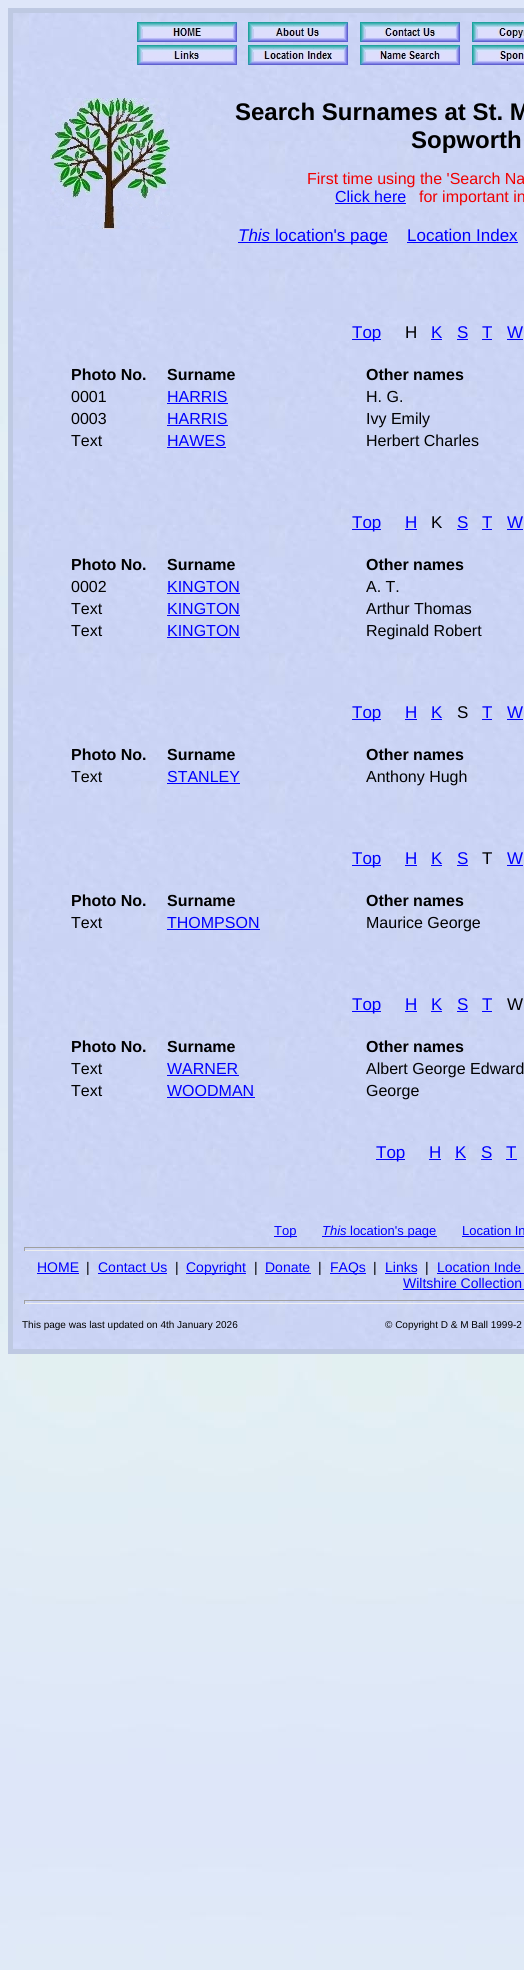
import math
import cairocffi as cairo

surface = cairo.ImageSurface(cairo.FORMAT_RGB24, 524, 1970)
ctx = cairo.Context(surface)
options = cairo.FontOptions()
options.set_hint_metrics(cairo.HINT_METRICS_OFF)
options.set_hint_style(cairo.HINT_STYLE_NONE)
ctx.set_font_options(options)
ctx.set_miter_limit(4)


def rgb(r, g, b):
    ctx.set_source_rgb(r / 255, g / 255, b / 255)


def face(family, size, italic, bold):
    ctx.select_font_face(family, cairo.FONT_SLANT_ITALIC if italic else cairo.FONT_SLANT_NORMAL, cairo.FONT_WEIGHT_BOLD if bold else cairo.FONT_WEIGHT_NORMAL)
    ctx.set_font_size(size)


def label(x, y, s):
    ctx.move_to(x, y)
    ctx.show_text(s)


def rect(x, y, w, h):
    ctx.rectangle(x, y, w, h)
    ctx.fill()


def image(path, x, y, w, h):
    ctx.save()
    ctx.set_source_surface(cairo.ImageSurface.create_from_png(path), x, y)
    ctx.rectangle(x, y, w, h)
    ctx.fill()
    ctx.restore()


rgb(255, 255, 255)
ctx.paint()
image('image0.png', 0, 0, 524, 1970)
image('image1.png', 13, 13, 511, 1336)
ctx.rectangle(10.5, 10.5, 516, 1341)
rgb(190, 201, 226)
ctx.set_line_width(5)
ctx.stroke()
image('image2.png', 137, 22, 100, 20)
image('image3.png', 248, 22, 100, 20)
image('image4.png', 360, 22, 100, 20)
image('image5.png', 472, 22, 52, 20)
image('image6.png', 137, 45, 100, 20)
image('image7.png', 248, 45, 100, 20)
image('image8.png', 360, 45, 100, 20)
image('image9.png', 472, 45, 52, 20)
image('image10.png', 50, 98, 120, 131)
face('Liberation Sans', 24, 0, 1)
rgb(0, 0, 0)
label(235, 120, 'Search Surnames at St. M')
label(411, 148, 'Sopworth')
face('Liberation Sans', 16, 0, 0)
rgb(240, 0, 0)
label(307, 184, 'First time using the \'Search Na')
rgb(0, 0, 255)
label(335, 202, 'Click here')
rect(335, 203, 71, 1)
rgb(240, 0, 0)
label(419, 202, 'for important in')
face('Liberation Sans', 17, 1, 0)
rgb(0, 0, 255)
label(238, 241, 'This')
rect(238, 242, 150, 1)
face('Liberation Sans', 17, 0, 0)
label(275, 241, 'location\'s page')
label(407, 241, 'Location Index')
rect(407, 242, 111, 1)
rect(352, 339, 29, 1)
label(352, 338, 'Top')
rgb(0, 0, 0)
label(405, 338, 'H')
rgb(0, 0, 255)
label(431, 338, 'K')
rect(431, 339, 11, 1)
label(457, 338, 'S')
rect(457, 339, 11, 1)
label(482, 338, 'T')
rect(482, 339, 10, 1)
label(507, 338, 'W')
rect(507, 339, 16, 1)
face('Liberation Sans', 16, 0, 1)
rgb(0, 0, 0)
label(71, 380, 'Photo No.')
label(167, 380, 'Surname')
label(366, 380, 'Other names')
face('Liberation Sans', 16, 0, 0)
label(71, 402, '0001')
rgb(0, 0, 255)
label(167, 402, 'HARRIS')
rect(167, 403, 61, 1)
rgb(0, 0, 0)
label(366, 402, 'H. G.')
label(71, 424, '0003')
rgb(0, 0, 255)
label(167, 424, 'HARRIS')
rect(167, 425, 61, 1)
rgb(0, 0, 0)
label(366, 424, 'Ivy Emily')
label(71, 446, 'Text')
rgb(0, 0, 255)
label(167, 446, 'HAWES')
rect(167, 447, 59, 1)
rgb(0, 0, 0)
label(366, 446, 'Herbert Charles')
rgb(0, 0, 255)
rect(352, 529, 29, 1)
face('Liberation Sans', 17, 0, 0)
label(352, 528, 'Top')
label(405, 528, 'H')
rect(405, 529, 12, 1)
rgb(0, 0, 0)
label(431, 528, 'K')
rgb(0, 0, 255)
label(457, 528, 'S')
rect(457, 529, 11, 1)
label(482, 528, 'T')
rect(482, 529, 10, 1)
label(507, 528, 'W')
rect(507, 529, 16, 1)
face('Liberation Sans', 16, 0, 1)
rgb(0, 0, 0)
label(71, 570, 'Photo No.')
label(167, 570, 'Surname')
label(366, 570, 'Other names')
face('Liberation Sans', 16, 0, 0)
label(71, 592, '0002')
rgb(0, 0, 255)
label(167, 592, 'KINGTON')
rect(167, 593, 73, 1)
rgb(0, 0, 0)
label(366, 592, 'A. T.')
label(71, 614, 'Text')
rgb(0, 0, 255)
label(167, 614, 'KINGTON')
rect(167, 615, 73, 1)
rgb(0, 0, 0)
label(366, 614, 'Arthur Thomas')
label(71, 636, 'Text')
rgb(0, 0, 255)
label(167, 636, 'KINGTON')
rect(167, 637, 73, 1)
rgb(0, 0, 0)
label(366, 636, 'Reginald Robert')
rgb(0, 0, 255)
rect(352, 719, 29, 1)
face('Liberation Sans', 17, 0, 0)
label(352, 718, 'Top')
label(405, 718, 'H')
rect(405, 719, 12, 1)
label(431, 718, 'K')
rect(431, 719, 11, 1)
rgb(0, 0, 0)
label(457, 718, 'S')
rgb(0, 0, 255)
label(482, 718, 'T')
rect(482, 719, 10, 1)
label(507, 718, 'W')
rect(507, 719, 16, 1)
face('Liberation Sans', 16, 0, 1)
rgb(0, 0, 0)
label(71, 760, 'Photo No.')
label(167, 760, 'Surname')
label(366, 760, 'Other names')
face('Liberation Sans', 16, 0, 0)
label(71, 782, 'Text')
rgb(0, 0, 255)
label(167, 782, 'STANLEY')
rect(167, 783, 73, 1)
rgb(0, 0, 0)
label(366, 782, 'Anthony Hugh')
rgb(0, 0, 255)
rect(352, 865, 29, 1)
face('Liberation Sans', 17, 0, 0)
label(352, 864, 'Top')
label(405, 864, 'H')
rect(405, 865, 12, 1)
label(431, 864, 'K')
rect(431, 865, 11, 1)
label(457, 864, 'S')
rect(457, 865, 11, 1)
rgb(0, 0, 0)
label(482, 864, 'T')
rgb(0, 0, 255)
label(507, 864, 'W')
rect(507, 865, 16, 1)
face('Liberation Sans', 16, 0, 1)
rgb(0, 0, 0)
label(71, 906, 'Photo No.')
label(167, 906, 'Surname')
label(366, 906, 'Other names')
face('Liberation Sans', 16, 0, 0)
label(71, 928, 'Text')
rgb(0, 0, 255)
label(167, 928, 'THOMPSON')
rect(167, 929, 93, 1)
rgb(0, 0, 0)
label(366, 928, 'Maurice George')
rgb(0, 0, 255)
rect(352, 1011, 29, 1)
face('Liberation Sans', 17, 0, 0)
label(352, 1010, 'Top')
label(405, 1010, 'H')
rect(405, 1011, 12, 1)
label(431, 1010, 'K')
rect(431, 1011, 11, 1)
label(457, 1010, 'S')
rect(457, 1011, 11, 1)
label(482, 1010, 'T')
rect(482, 1011, 10, 1)
rgb(0, 0, 0)
label(507, 1010, 'W')
face('Liberation Sans', 16, 0, 1)
label(71, 1052, 'Photo No.')
label(167, 1052, 'Surname')
label(366, 1052, 'Other names')
face('Liberation Sans', 16, 0, 0)
label(71, 1074, 'Text')
rgb(0, 0, 255)
label(167, 1074, 'WARNER')
rect(167, 1075, 72, 1)
rgb(0, 0, 0)
label(366, 1074, 'Albert George Edward')
label(71, 1096, 'Text')
rgb(0, 0, 255)
label(167, 1096, 'WOODMAN')
rect(167, 1097, 88, 1)
rgb(0, 0, 0)
label(366, 1096, 'George')
rgb(0, 0, 255)
rect(376, 1159, 29, 1)
face('Liberation Sans', 17, 0, 0)
label(376, 1158, 'Top')
label(429, 1158, 'H')
rect(429, 1159, 12, 1)
label(455, 1158, 'K')
rect(455, 1159, 11, 1)
label(481, 1158, 'S')
rect(481, 1159, 11, 1)
label(506, 1158, 'T')
rect(506, 1159, 11, 1)
rect(274, 1236, 23, 1)
face('Liberation Sans', 13, 0, 0)
label(274, 1235, 'Top')
face('Liberation Sans', 13, 1, 0)
label(322, 1235, 'This')
rect(322, 1236, 115, 1)
face('Liberation Sans', 13, 0, 0)
label(350, 1235, 'location\'s page')
label(462, 1235, 'Location In')
rect(462, 1236, 62, 1)
rgb(159, 159, 159)
rect(24, 1247, 500, 1)
rgb(238, 238, 238)
rect(24, 1250, 500, 1)
rgb(159, 159, 159)
rect(24, 1247, 1, 4)
face('Liberation Sans', 14, 0, 0)
rgb(0, 0, 255)
label(37, 1272, 'HOME')
rect(37, 1273, 42, 1)
rgb(0, 0, 0)
label(86, 1272, '|')
rgb(0, 0, 255)
label(98, 1272, 'Contact Us')
rect(98, 1273, 69, 1)
rgb(0, 0, 0)
label(175, 1272, '|')
rgb(0, 0, 255)
rect(186, 1273, 60, 1)
label(186, 1272, 'Copyright')
rgb(0, 0, 0)
label(254, 1272, '|')
rgb(0, 0, 255)
label(265, 1272, 'Donate')
rect(265, 1273, 46, 1)
rgb(0, 0, 0)
label(318, 1272, '|')
rgb(0, 0, 255)
rect(330, 1273, 36, 1)
label(330, 1272, 'FAQs')
rgb(0, 0, 0)
label(373, 1272, '|')
rgb(0, 0, 255)
label(385, 1272, 'Links')
rect(385, 1273, 32, 1)
rgb(0, 0, 0)
label(425, 1272, '|')
rgb(0, 0, 255)
label(437, 1272, 'Location Inde')
rect(437, 1273, 87, 1)
label(403, 1288, 'Wiltshire Collection')
rect(403, 1289, 121, 1)
rgb(159, 159, 159)
rect(24, 1300, 500, 1)
rgb(238, 238, 238)
rect(24, 1303, 500, 1)
rgb(159, 159, 159)
rect(24, 1300, 1, 4)
face('Liberation Sans', 10, 0, 0)
rgb(0, 0, 0)
label(22, 1328, 'This page was last updated on 4th January 2026')
label(385, 1328, '© Copyright D & M Ball 1999-2')
surface.write_to_png('render.png')
